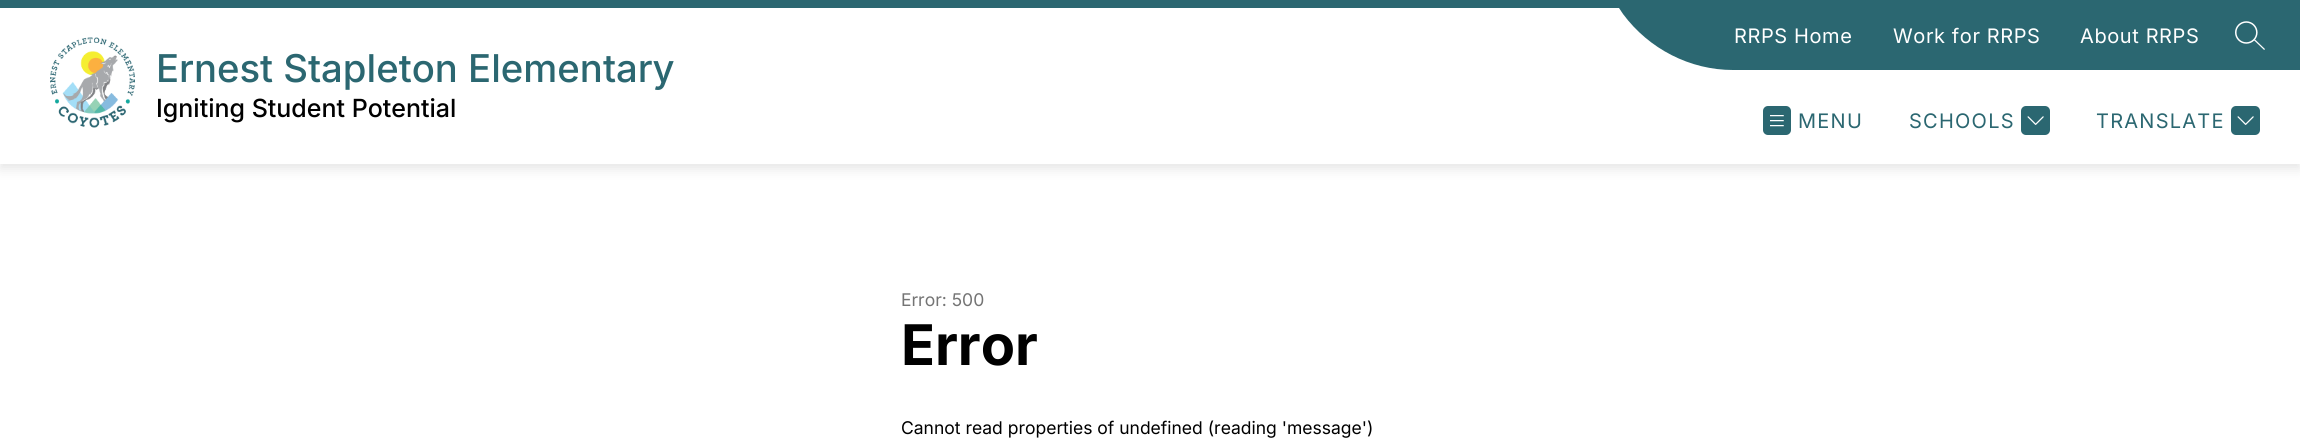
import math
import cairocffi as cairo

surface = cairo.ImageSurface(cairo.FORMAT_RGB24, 2300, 448)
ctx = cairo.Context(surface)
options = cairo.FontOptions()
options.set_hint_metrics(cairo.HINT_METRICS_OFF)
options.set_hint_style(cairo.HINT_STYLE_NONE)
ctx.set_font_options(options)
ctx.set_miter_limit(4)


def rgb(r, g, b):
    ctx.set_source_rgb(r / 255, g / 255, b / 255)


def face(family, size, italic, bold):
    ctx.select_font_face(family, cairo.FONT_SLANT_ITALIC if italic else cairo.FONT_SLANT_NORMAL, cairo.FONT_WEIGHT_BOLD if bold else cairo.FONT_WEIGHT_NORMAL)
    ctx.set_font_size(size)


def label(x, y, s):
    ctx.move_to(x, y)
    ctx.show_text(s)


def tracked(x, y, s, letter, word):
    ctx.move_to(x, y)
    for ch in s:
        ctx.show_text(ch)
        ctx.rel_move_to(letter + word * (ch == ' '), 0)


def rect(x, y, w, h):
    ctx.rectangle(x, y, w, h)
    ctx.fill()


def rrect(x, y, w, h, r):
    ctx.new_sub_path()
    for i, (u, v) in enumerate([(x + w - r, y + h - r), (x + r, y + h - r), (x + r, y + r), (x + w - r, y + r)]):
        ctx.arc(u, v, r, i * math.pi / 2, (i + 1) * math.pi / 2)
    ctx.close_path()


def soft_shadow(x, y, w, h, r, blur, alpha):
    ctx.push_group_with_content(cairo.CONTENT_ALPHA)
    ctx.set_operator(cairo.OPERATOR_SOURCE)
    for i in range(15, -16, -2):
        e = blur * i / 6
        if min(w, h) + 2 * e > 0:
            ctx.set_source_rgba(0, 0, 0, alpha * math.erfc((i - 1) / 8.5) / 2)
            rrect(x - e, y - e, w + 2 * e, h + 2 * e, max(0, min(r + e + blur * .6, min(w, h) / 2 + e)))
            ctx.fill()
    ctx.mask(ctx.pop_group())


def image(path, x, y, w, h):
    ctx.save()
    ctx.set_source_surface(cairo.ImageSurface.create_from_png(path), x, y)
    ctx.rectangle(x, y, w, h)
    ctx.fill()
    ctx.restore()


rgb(255, 255, 255)
ctx.paint()
rgb(0, 0, 0)
soft_shadow(0, 5, 2300, 164, 0, 6, 0.1)
rgb(255, 255, 255)
rect(0, 8, 2300, 156)
rgb(43, 103, 113)
rect(0, 0, 1619, 8)
image('image0.png', 50, 37, 85, 91)
face('Inter Medium', 38.3, 0, 0)
label(156, 82, 'Ernest Stapleton Elementary')
face('Inter Medium', 25, 0, 0)
rgb(0, 0, 0)
label(156, 117, 'Igniting Student Potential')
rgb(43, 103, 113)
rect(1736, 0, 564, 70)
ctx.new_path()
ctx.move_to(1733, 70)
ctx.line_to(1736, 70)
ctx.line_to(1736, 0)
ctx.line_to(1616, 0)
ctx.curve_to(1615, 0, 1615, 1, 1615, 2)
ctx.line_to(1623, 14)
ctx.curve_to(1649, 49, 1690, 70, 1733, 70)
ctx.close_path()
ctx.fill()
face('Inter', 20, 0, 0)
rgb(255, 255, 255)
tracked(1734, 43, 'RRPS Home', 0.6, 0)
tracked(1893, 43, 'Work for RRPS', 0.6, 0)
tracked(2080, 43, 'About RRPS', 0.6, 0)
image('image1.png', 2235, 21, 30, 29)
image('image2.png', 1763, 106, 28, 29)
rgb(43, 103, 113)
tracked(1798, 128, 'MENU', 1.25, 0)
tracked(1909, 128, 'SCHOOLS', 1.25, 0)
image('image3.png', 2021, 106, 29, 29)
tracked(2096, 128, 'TRANSLATE', 1.25, 0)
image('image3.png', 2231, 106, 29, 29)
face('Inter', 17.5, 0, 0)
rgb(116, 116, 116)
label(901, 306, 'Error: 500')
face('Inter', 56, 0, 1)
rgb(0, 0, 0)
label(901, 365, 'Error')
face('Inter', 17.5, 0, 0)
label(901, 434, 'Cannot read properties of undefined (reading \'message\')')
surface.write_to_png('render.png')
